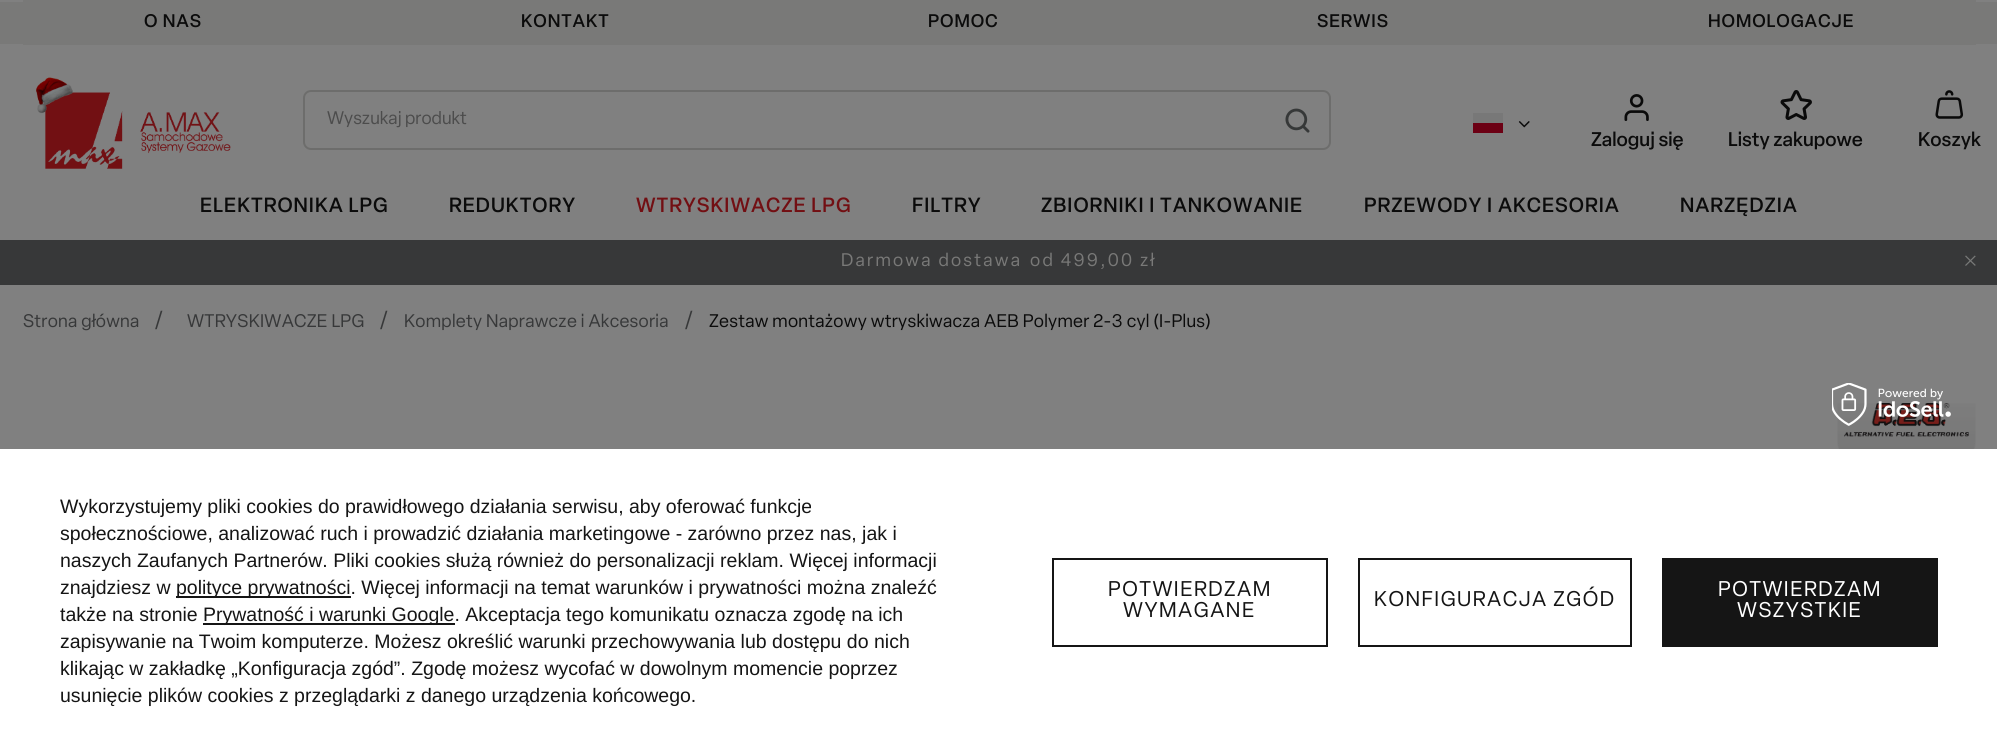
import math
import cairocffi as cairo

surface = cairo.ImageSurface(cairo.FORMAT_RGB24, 1997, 754)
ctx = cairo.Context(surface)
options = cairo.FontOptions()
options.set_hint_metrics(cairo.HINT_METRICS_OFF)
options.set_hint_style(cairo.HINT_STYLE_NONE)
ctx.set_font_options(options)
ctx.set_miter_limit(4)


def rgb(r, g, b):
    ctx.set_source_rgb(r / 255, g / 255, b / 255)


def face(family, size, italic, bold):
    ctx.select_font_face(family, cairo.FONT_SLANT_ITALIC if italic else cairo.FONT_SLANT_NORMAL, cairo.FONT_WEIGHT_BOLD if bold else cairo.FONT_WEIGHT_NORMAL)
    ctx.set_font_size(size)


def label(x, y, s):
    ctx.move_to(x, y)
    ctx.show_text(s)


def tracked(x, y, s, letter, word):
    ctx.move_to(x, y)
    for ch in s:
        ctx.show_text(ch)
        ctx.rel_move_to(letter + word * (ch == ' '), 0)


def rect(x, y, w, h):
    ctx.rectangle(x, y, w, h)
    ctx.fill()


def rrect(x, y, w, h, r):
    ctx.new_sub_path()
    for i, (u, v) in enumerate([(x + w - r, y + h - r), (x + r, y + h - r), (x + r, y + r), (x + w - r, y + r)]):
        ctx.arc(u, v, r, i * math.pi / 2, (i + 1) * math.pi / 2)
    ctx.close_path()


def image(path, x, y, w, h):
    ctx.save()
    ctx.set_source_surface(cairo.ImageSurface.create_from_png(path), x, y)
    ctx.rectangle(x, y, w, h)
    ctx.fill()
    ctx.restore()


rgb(128, 128, 128)
ctx.paint()
rgb(121, 121, 120)
rect(0, 2, 1997, 42)
rect(23, 0, 1953, 45)
face('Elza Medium', 18, 0, 0)
rgb(11, 11, 11)
tracked(144, 27, 'O NAS', 0.9, 0)
tracked(521, 27, 'KONTAKT', 0.9, 0)
tracked(928, 27, 'POMOC', 0.9, 0)
tracked(1317, 27, 'SERWIS', 0.9, 0)
tracked(1708, 27, 'HOMOLOGACJE', 0.9, 0)
image('image0.png', 36, 77, 195, 92)
rrect(304, 91, 1026, 58, 7)
rgb(109, 109, 108)
ctx.stroke()
ctx.save()
ctx.rectangle(327, 111, 890, 18)
ctx.clip()
face('Elza', 18, 0, 0)
rgb(76, 76, 76)
label(327, 124, 'Wyszukaj produkt')
ctx.restore()
image('image1.png', 1285, 108, 25, 25)
rgb(120, 120, 120)
rect(1473, 113, 30, 10)
rgb(108, 0, 20)
rect(1473, 123, 30, 10)
image('image2.png', 1518, 121, 12, 7)
image('image3.png', 1624, 94, 25, 27)
face('Elza Medium', 19.5, 0, 0)
rgb(11, 11, 11)
label(1591, 146, 'Zaloguj się')
image('image4.png', 1780, 90, 32, 30)
label(1728, 146, 'Listy zakupowe')
image('image5.png', 1935, 90, 29, 29)
label(1918, 146, 'Koszyk')
face('Elza Medium', 20.25, 0, 0)
tracked(200, 212, 'ELEKTRONIKA LPG', 1, 0)
tracked(449, 212, 'REDUKTORY', 1, 0)
rgb(114, 15, 19)
tracked(636, 212, 'WTRYSKIWACZE LPG', 1, 0)
rgb(11, 11, 11)
tracked(912, 212, 'FILTRY', 1, 0)
tracked(1041, 212, 'ZBIORNIKI I TANKOWANIE', 1, 0)
tracked(1364, 212, 'PRZEWODY I AKCESORIA', 1, 0)
tracked(1680, 212, 'NARZĘDZIA', 1, 0)
rgb(55, 56, 57)
rect(0, 240, 1997, 45)
face('Elza', 18, 0, 0)
rgb(121, 121, 120)
tracked(841, 266, 'Darmowa dostawa', 2.25, 0)
tracked(1030, 266, 'od 499,00 zł', 2.25, 0)
image('image6.png', 1965, 255, 11, 11)
rgb(55, 56, 57)
tracked(23, 327, 'Strona główna', 0.27, 0)
face('Elza', 22, 0, 0)
tracked(154, 327, '/', 0.27, 0)
face('Elza', 18, 0, 0)
tracked(187, 327, 'WTRYSKIWACZE LPG', 0.27, 0)
face('Elza', 22, 0, 0)
tracked(379, 327, '/', 0.27, 0)
face('Elza', 18, 0, 0)
tracked(404, 327, 'Komplety Naprawcze i Akcesoria', 0.27, 0)
face('Elza', 22, 0, 0)
tracked(684, 327, '/', 0.27, 0)
face('Elza', 18, 0, 0)
rgb(11, 11, 11)
tracked(709, 327, 'Zestaw montażowy wtryskiwacza AEB Polymer 2-3 cyl (I-Plus)', 0.27, 0)
image('image7.png', 1837, 403, 139, 46)
rgb(255, 255, 255)
rect(0, 449, 1997, 305)
image('image8.png', 1832, 383, 119, 43)
face('Liberation Sans', 19.5, 0, 0)
rgb(21, 21, 21)
label(60, 513, 'Wykorzystujemy pliki cookies do prawidłowego działania serwisu, aby oferować funkcje')
label(60, 540, 'społecznościowe, analizować ruch i prowadzić działania marketingowe - zarówno przez nas, jak i')
label(60, 567, 'naszych Zaufanych Partnerów. Pliki cookies służą również do personalizacji reklam. Więcej informacji')
label(60, 594, 'znajdziesz w')
rect(176, 596, 175, 2)
label(176, 594, 'polityce prywatności. Więcej informacji na temat warunków i prywatności można znaleźć')
label(60, 621, 'także na stronie')
rect(203, 623, 252, 2)
label(203, 621, 'Prywatność i warunki Google. Akceptacja tego komunikatu oznacza zgodę na ich')
label(60, 648, 'zapisywanie na Twoim komputerze. Możesz określić warunki przechowywania lub dostępu do nich')
label(60, 675, 'klikając w zakładkę „Konfiguracja zgód”. Zgodę możesz wycofać w dowolnym momencie poprzez')
label(60, 702, 'usunięcie plików cookies z przeglądarki z danego urządzenia końcowego.')
ctx.rectangle(1053, 559, 274, 87)
ctx.stroke()
face('Elza', 21, 0, 0)
tracked(1108, 596, 'POTWIERDZAM', 1.5, 0)
tracked(1123, 617, 'WYMAGANE', 1.5, 0)
ctx.rectangle(1359, 559, 272, 87)
ctx.stroke()
tracked(1374, 606, 'KONFIGURACJA ZGÓD', 1.5, 0)
rect(1662, 558, 276, 89)
rgb(255, 255, 255)
tracked(1718, 596, 'POTWIERDZAM', 1.5, 0)
tracked(1737, 617, 'WSZYSTKIE', 1.5, 0)
surface.write_to_png('render.png')
